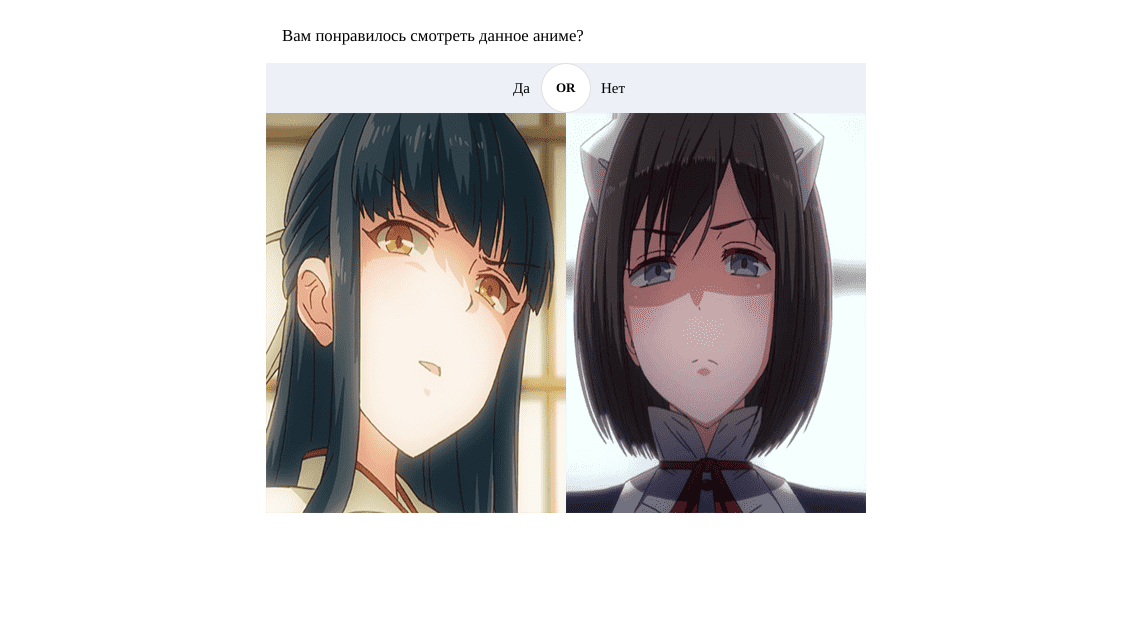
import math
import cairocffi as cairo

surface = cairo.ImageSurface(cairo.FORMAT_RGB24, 1131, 617)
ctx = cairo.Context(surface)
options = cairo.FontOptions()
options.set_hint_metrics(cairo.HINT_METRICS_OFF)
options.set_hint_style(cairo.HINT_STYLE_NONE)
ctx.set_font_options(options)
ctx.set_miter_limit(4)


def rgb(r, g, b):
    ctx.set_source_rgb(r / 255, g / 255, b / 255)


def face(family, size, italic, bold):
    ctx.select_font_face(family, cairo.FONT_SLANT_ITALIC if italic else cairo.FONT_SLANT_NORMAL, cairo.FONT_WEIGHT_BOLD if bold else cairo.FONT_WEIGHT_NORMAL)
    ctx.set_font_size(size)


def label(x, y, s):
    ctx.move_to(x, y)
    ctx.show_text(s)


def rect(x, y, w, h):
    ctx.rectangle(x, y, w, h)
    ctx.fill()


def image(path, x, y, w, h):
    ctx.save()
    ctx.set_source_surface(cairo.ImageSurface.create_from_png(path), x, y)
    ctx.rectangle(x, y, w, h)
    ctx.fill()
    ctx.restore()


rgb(255, 255, 255)
ctx.paint()
face('Liberation Serif', 16.75, 0, 0)
rgb(0, 0, 0)
label(282, 41, 'Вам понравилось смотреть данное аниме?')
rgb(237, 241, 247)
rect(266, 63, 600, 50)
face('Liberation Serif', 15, 0, 0)
rgb(0, 0, 0)
label(513, 93, 'Да')
image('image0.png', 266, 113, 300, 400)
rgb(255, 255, 255)
ctx.arc(566, 88, 24.5, 0, 2 * math.pi)
ctx.fill_preserve()
rgb(223, 223, 223)
ctx.set_line_width(1)
ctx.stroke()
face('Liberation Serif', 13, 0, 1)
rgb(0, 0, 0)
label(556, 92, 'OR')
face('Liberation Serif', 15, 0, 0)
label(601, 93, 'Нет')
image('image1.png', 566, 113, 300, 400)
surface.write_to_png('render.png')
